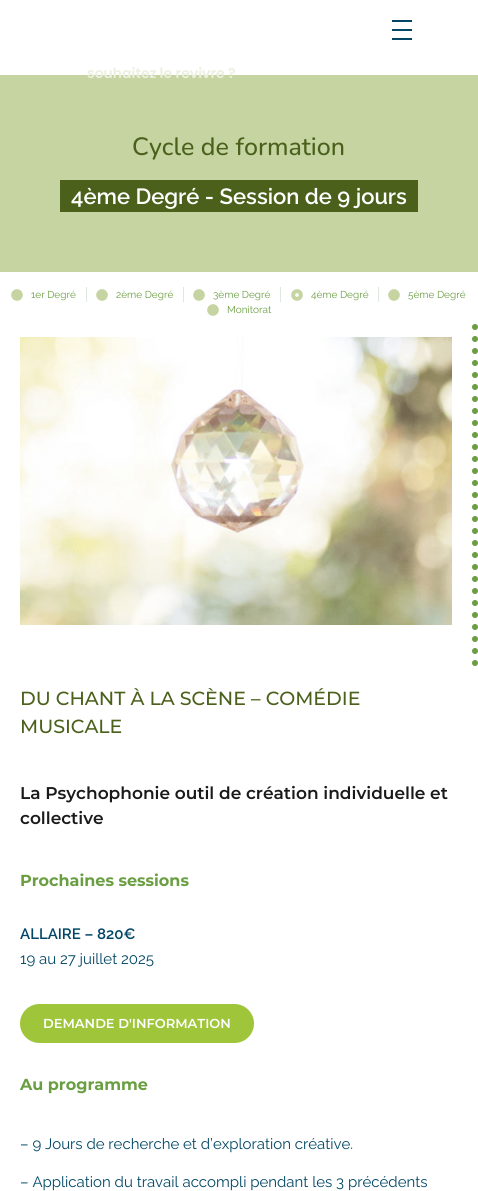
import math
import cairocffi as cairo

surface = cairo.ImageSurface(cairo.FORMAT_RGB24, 478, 1191)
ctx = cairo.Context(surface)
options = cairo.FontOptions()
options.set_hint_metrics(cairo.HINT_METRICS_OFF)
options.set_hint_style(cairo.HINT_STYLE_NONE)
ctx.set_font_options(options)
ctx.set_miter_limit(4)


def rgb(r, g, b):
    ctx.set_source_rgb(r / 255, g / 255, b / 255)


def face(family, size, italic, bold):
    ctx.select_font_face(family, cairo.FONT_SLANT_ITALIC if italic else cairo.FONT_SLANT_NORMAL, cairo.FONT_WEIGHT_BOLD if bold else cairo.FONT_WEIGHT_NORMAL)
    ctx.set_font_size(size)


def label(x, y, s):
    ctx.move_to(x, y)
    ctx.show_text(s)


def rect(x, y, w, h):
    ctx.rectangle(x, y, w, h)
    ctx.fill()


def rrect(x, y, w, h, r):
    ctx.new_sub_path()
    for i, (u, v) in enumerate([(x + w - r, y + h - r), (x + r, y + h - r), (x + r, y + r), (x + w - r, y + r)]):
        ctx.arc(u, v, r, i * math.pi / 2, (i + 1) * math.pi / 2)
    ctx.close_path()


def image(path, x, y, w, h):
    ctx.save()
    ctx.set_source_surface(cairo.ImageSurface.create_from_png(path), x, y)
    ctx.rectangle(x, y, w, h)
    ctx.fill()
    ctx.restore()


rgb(255, 255, 255)
ctx.paint()
rgb(197, 212, 161)
rect(0, 75, 478, 197)
face('Poppins SemiBold', 14, 0, 0)
rgb(235, 240, 223)
label(87, 78, 'souhaitez le revivre ?')
rgb(1, 71, 101)
rect(392, 20, 20, 2)
rect(392, 29, 20, 2)
rect(392, 38, 20, 2)
face('Nunito Medium', 25, 0, 0)
rgb(75, 97, 27)
label(132, 155, 'Cycle de formation')
rect(60, 180, 358, 32)
face('Raleway SemiBold', 22, 0, 0)
rgb(255, 255, 255)
label(71, 204, '4ème Degré - Session de 9 jours')
image('image0.png', 11, 289, 12, 12)
face('Raleway', 10, 0, 0)
rgb(106, 158, 66)
label(31, 298, '1er Degré')
rgb(222, 232, 222)
rect(86, 287, 1, 15)
image('image0.png', 96, 289, 12, 12)
rgb(106, 158, 66)
label(116, 298, '2ème Degré')
rgb(222, 232, 222)
rect(183, 287, 1, 15)
image('image0.png', 193, 289, 12, 12)
rgb(106, 158, 66)
label(213, 298, '3ème Degré')
rgb(222, 232, 222)
rect(280, 287, 1, 15)
image('image1.png', 291, 289, 12, 12)
rgb(106, 158, 66)
label(311, 298, '4ème Degré')
rgb(222, 232, 222)
rect(378, 287, 1, 15)
image('image0.png', 388, 289, 12, 12)
rgb(106, 158, 66)
label(408, 298, '5ème Degré')
image('image0.png', 207, 304, 12, 12)
label(227, 313, 'Monitorat')
ctx.new_path()
ctx.move_to(475, 327)
ctx.line_to(475, 665)
ctx.set_line_width(6)
ctx.set_line_cap(cairo.LINE_CAP_ROUND)
ctx.set_dash([0, 12])
ctx.stroke()
image('image2.png', 20, 337, 432, 288)
face('Montserrat Medium', 19, 0, 0)
rgb(75, 97, 27)
label(20, 705, 'DU CHANT À LA SCÈNE – COMÉDIE')
label(20, 733, 'MUSICALE')
face('Montserrat SemiBold', 17, 0, 0)
rgb(26, 26, 26)
label(20, 799, 'La Psychophonie outil de création individuelle et')
label(20, 824, 'collective')
face('Montserrat', 16, 0, 1)
rgb(106, 158, 66)
label(20, 886, 'Prochaines sessions')
face('Raleway SemiBold', 15, 0, 0)
rgb(1, 71, 101)
label(20, 939, 'ALLAIRE – 820€')
face('Raleway', 15, 0, 0)
label(20, 964, '19 au 27 juillet 2025')
rgb(159, 198, 59)
rrect(20, 1004, 234, 39, 19.5)
ctx.fill()
face('Montserrat SemiBold', 13, 0, 0)
rgb(255, 255, 255)
label(43, 1028, 'DEMANDE D\'INFORMATION')
face('Montserrat', 16, 0, 1)
rgb(106, 158, 66)
label(20, 1090, 'Au programme')
face('Raleway', 15, 0, 0)
rgb(1, 71, 101)
label(20, 1149, '– 9 Jours de recherche et d’exploration créative.')
label(20, 1187, '– Application du travail accompli pendant les 3 précédents')
surface.write_to_png('render.png')
